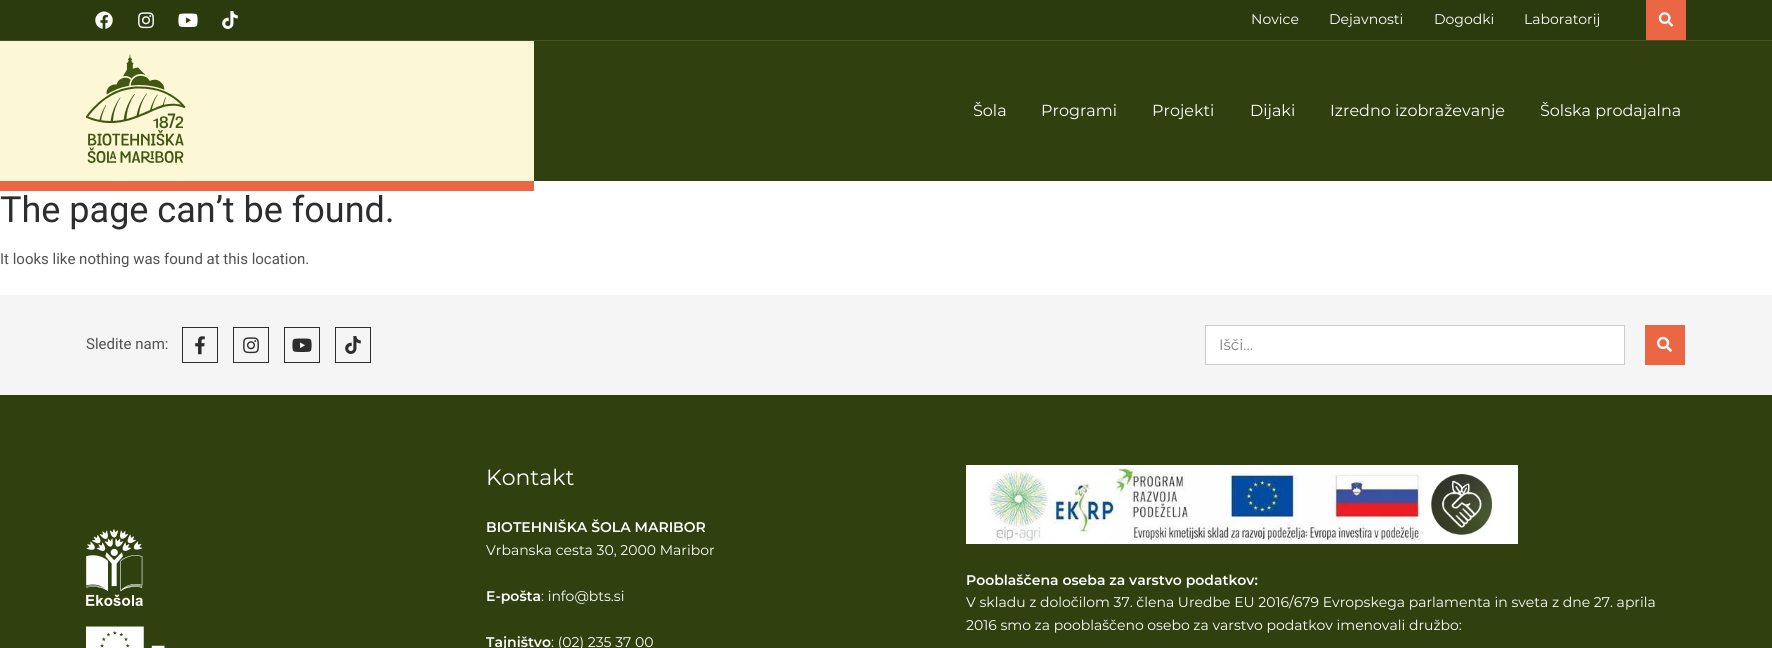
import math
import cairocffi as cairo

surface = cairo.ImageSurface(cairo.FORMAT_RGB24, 1772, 648)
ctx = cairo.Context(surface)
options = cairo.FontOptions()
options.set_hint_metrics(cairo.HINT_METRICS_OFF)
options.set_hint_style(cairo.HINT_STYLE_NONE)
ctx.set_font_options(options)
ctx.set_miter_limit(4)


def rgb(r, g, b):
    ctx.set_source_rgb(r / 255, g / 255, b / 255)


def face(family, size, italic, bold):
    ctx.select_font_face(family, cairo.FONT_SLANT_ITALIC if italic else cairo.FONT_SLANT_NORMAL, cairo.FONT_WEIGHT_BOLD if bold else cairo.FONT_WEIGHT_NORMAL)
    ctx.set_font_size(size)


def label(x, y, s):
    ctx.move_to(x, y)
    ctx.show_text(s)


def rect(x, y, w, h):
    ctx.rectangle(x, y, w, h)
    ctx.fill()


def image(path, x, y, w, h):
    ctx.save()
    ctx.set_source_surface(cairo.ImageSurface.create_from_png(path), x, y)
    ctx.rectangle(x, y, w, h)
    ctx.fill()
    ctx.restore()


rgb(255, 255, 255)
ctx.paint()
rgb(69, 83, 39)
rect(0, 40, 1772, 1)
rgb(44, 59, 14)
rect(0, 0, 1772, 40)
image('image0.png', 95, 11, 18, 18)
image('image1.png', 138, 12, 16, 17)
image('image2.png', 178, 13, 20, 14)
image('image3.png', 222, 11, 16, 18)
face('Montserrat', 14, 0, 0)
rgb(255, 255, 255)
label(1251, 24, 'Novice')
label(1329, 24, 'Dejavnosti')
label(1434, 24, 'Dogodki')
label(1524, 24, 'Laboratorij')
rgb(234, 102, 69)
rect(1646, 0, 40, 40)
image('image4.png', 1658, 12, 16, 15)
rgb(48, 64, 15)
rect(534, 41, 1238, 140)
rgb(252, 247, 212)
rect(0, 41, 534, 140)
image('image5.png', 86, 54, 100, 109)
rgb(234, 102, 69)
rect(0, 181, 534, 10)
face('Montserrat', 16, 0, 0)
rgb(255, 255, 255)
label(973, 116, 'Šola')
label(1041, 116, 'Programi')
label(1152, 116, 'Projekti')
label(1250, 116, 'Dijaki')
label(1330, 116, 'Izredno izobraževanje')
label(1540, 116, 'Šolska prodajalna')
face('Roboto', 36, 0, 0)
rgb(45, 45, 45)
label(0, 222, 'The page can’t be found.')
face('Roboto', 15, 0, 0)
rgb(81, 81, 81)
label(0, 264, 'It looks like nothing was found at this location.')
rgb(245, 245, 245)
rect(0, 295, 1772, 100)
rgb(81, 81, 81)
label(86, 349, 'Sledite nam:')
ctx.rectangle(182.5, 327.5, 35, 35)
rgb(45, 45, 45)
ctx.set_line_width(1)
ctx.stroke()
image('image6.png', 195, 336, 10, 19)
ctx.rectangle(233.5, 327.5, 35, 35)
ctx.stroke()
image('image7.png', 243, 337, 16, 17)
ctx.rectangle(284.5, 327.5, 35, 35)
ctx.stroke()
image('image8.png', 292, 338, 20, 14)
ctx.rectangle(335.5, 327.5, 35, 35)
ctx.stroke()
image('image9.png', 345, 336, 16, 18)
rgb(255, 255, 255)
ctx.rectangle(1205.5, 325.5, 419, 39)
ctx.fill_preserve()
rgb(204, 204, 204)
ctx.stroke()
face('Montserrat', 15, 0, 0)
rgb(129, 129, 129)
label(1219, 350, 'Išči...')
rgb(234, 102, 69)
rect(1645, 325, 40, 40)
image('image10.png', 1657, 336, 15, 16)
rgb(48, 64, 15)
rect(0, 395, 1772, 253)
image('image11.png', 86, 529, 57, 77)
image('image12.png', 86, 626, 79, 22)
face('Montserrat', 22, 0, 0)
rgb(255, 255, 255)
label(486, 485, 'Kontakt')
face('Montserrat SemiBold', 14, 0, 0)
label(486, 532, 'BIOTEHNIŠKA ŠOLA MARIBOR')
face('Montserrat', 14, 0, 0)
label(486, 555, 'Vrbanska cesta 30, 2000 Maribor')
face('Montserrat SemiBold', 14, 0, 0)
label(486, 601, 'E-pošta')
face('Montserrat', 14, 0, 0)
label(541, 601, ': info@bts.si')
face('Montserrat SemiBold', 14, 0, 0)
label(486, 647, 'Tajništvo')
face('Montserrat', 14, 0, 0)
label(551, 647, ': (02) 235 37 00')
image('image13.png', 966, 465, 552, 79)
face('Montserrat SemiBold', 14, 0, 0)
label(966, 585, 'Pooblaščena oseba za varstvo podatkov:')
face('Montserrat', 14, 0, 0)
label(966, 607, 'V skladu z določilom 37. člena Uredbe EU 2016/679 Evropskega parlamenta in sveta z dne 27. aprila')
label(966, 630, '2016 smo za pooblaščeno osebo za varstvo podatkov imenovali družbo:')
surface.write_to_png('render.png')
